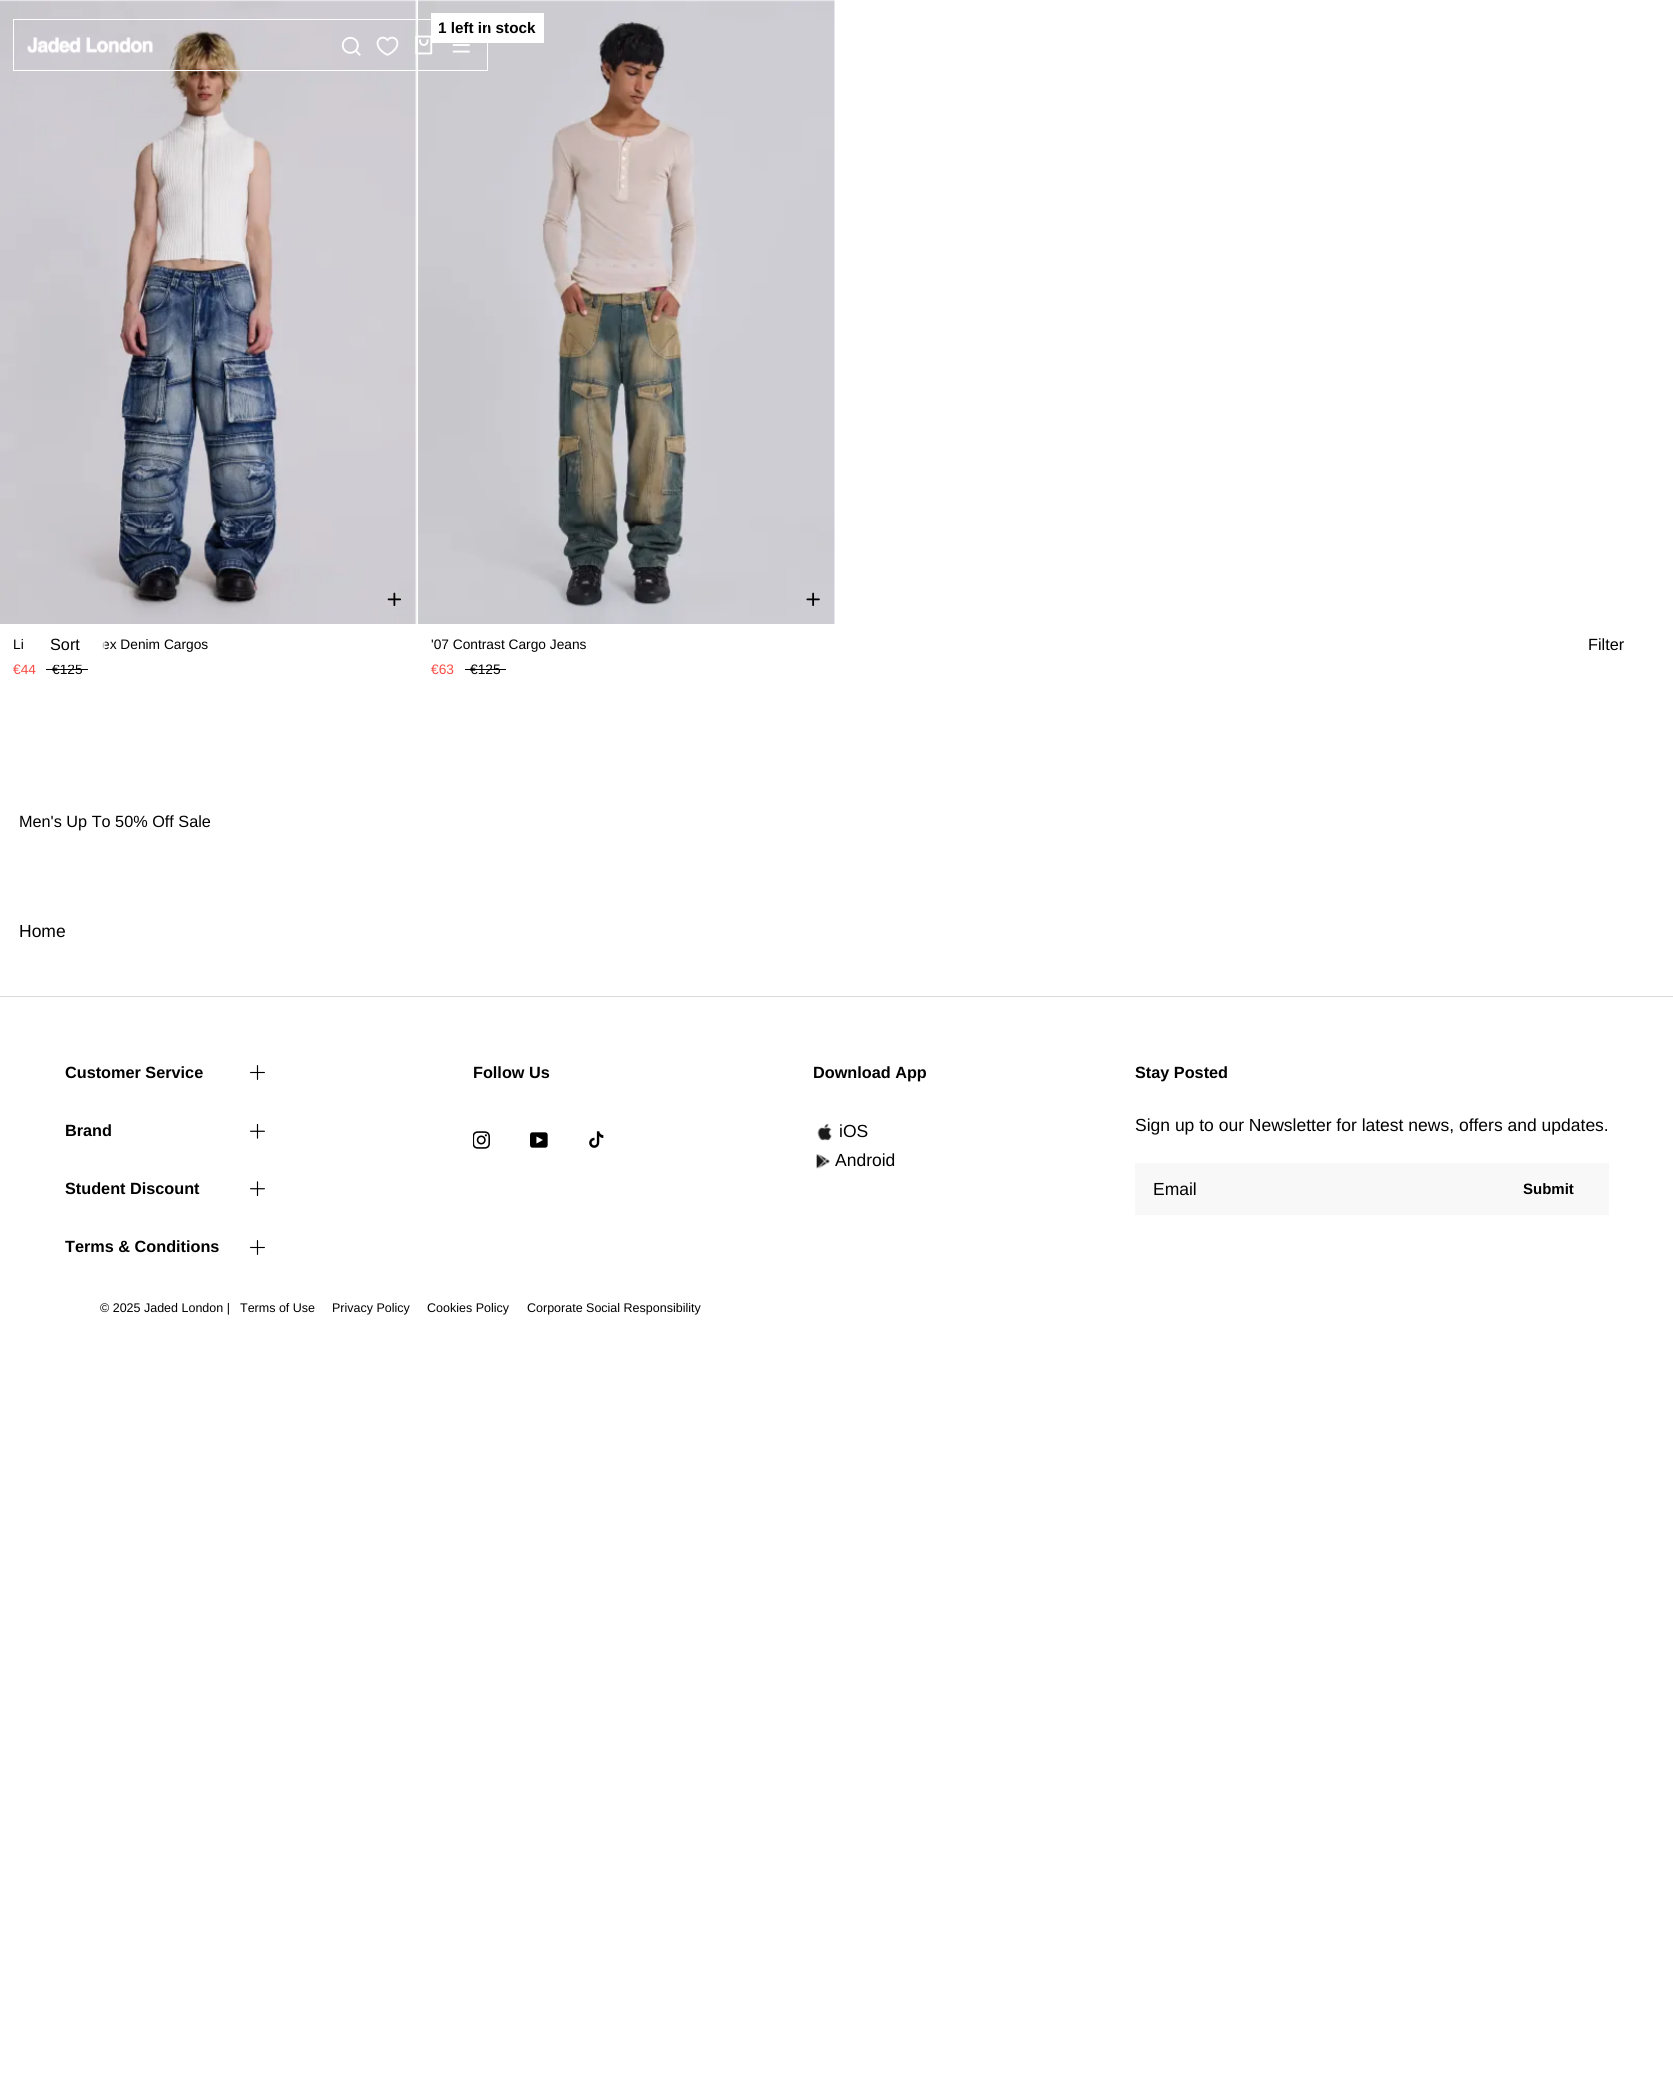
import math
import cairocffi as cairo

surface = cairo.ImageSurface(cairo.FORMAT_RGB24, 1673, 2084)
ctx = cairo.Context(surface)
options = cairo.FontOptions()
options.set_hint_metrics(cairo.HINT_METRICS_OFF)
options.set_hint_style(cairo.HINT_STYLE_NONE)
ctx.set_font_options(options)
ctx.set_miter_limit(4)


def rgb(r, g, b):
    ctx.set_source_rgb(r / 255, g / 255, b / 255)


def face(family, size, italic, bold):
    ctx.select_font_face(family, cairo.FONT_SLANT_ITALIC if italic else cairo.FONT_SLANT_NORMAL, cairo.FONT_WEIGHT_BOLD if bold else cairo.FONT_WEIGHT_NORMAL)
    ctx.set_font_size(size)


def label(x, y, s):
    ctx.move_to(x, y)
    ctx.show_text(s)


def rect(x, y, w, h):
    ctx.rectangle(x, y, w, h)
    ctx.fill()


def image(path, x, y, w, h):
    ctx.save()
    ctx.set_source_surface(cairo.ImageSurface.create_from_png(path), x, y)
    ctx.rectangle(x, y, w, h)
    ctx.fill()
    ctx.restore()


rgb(255, 255, 255)
ctx.paint()
image('image5.png', 0, 0, 417, 624)
image('image7.png', 418, 0, 417, 624)
rgb(255, 255, 255)
rect(431, 13, 113, 30)
face('Liberation Sans', 15.25, 0, 1)
rgb(0, 0, 0)
label(438, 33, '1 left in stock')
ctx.rectangle(13.5, 19.5, 474, 51)
rgb(255, 255, 255)
ctx.set_line_width(1)
ctx.stroke()
image('image0.png', 27, 37, 126, 16)
image('image1.png', 341, 36, 20, 20)
image('image2.png', 376, 36, 23, 20)
image('image3.png', 415, 35, 18, 20)
image('image4.png', 452, 44, 18, 9)
image('image6.png', 387, 592, 15, 15)
face('Liberation Sans', 13.75, 0, 0)
rgb(0, 0, 0)
label(13, 649, 'Li')
label(102, 649, 'ex Denim Cargos')
rgb(249, 76, 67)
label(13, 674, '€44')
rgb(0, 0, 0)
label(52, 674, '€125')
rect(46, 669, 42, 1)
image('image8.png', 806, 592, 14, 15)
label(431, 649, '\'07 Contrast Cargo Jeans')
rgb(249, 76, 67)
label(431, 674, '€63')
rgb(0, 0, 0)
label(470, 674, '€125')
rect(465, 669, 41, 1)
face('Liberation Sans', 16.25, 0, 0)
label(19, 827, 'Men\'s Up To 50% Off Sale')
ctx.set_source_rgba(1, 1, 1, 0.75)
rect(25, 641, 80, 24)
rgb(0, 0, 0)
label(50, 650, 'Sort')
label(1588, 650, 'Filter')
face('Liberation Sans', 17.5, 0, 0)
label(19, 937, 'Home')
rgb(217, 217, 217)
rect(0, 996, 1673, 1)
face('Liberation Sans', 16.25, 0, 1)
rgb(0, 0, 0)
label(65, 1078, 'Customer Service')
image('image9.png', 250, 1065, 15, 15)
label(65, 1136, 'Brand')
image('image10.png', 250, 1124, 15, 15)
label(65, 1194, 'Student Discount')
image('image11.png', 250, 1181, 15, 15)
label(65, 1252, 'Terms & Conditions')
image('image9.png', 250, 1240, 15, 15)
label(473, 1078, 'Follow Us')
image('image12.png', 473, 1131, 17, 18)
image('image13.png', 530, 1132, 18, 16)
image('image14.png', 589, 1131, 15, 17)
label(813, 1078, 'Download App')
image('image15.png', 817, 1123, 15, 18)
face('Liberation Sans', 17.5, 0, 0)
label(839, 1137, 'iOS')
image('image16.png', 816, 1154, 14, 15)
label(835, 1166, 'Android')
face('Liberation Sans', 16.25, 0, 1)
label(1135, 1078, 'Stay Posted')
face('Liberation Sans', 17.5, 0, 0)
label(1135, 1131, 'Sign up to our Newsletter for latest news, offers and updates.')
rgb(248, 248, 248)
rect(1135, 1163, 474, 52)
rgb(0, 0, 0)
label(1153, 1195, 'Email')
face('Liberation Sans', 15, 0, 1)
label(1523, 1194, 'Submit')
face('Liberation Sans', 12.5, 0, 0)
label(100, 1312, '© 2025 Jaded London |')
label(240, 1312, 'Terms of Use')
label(332, 1312, 'Privacy Policy')
label(427, 1312, 'Cookies Policy')
label(527, 1312, 'Corporate Social Responsibility')
surface.write_to_png('render.png')
